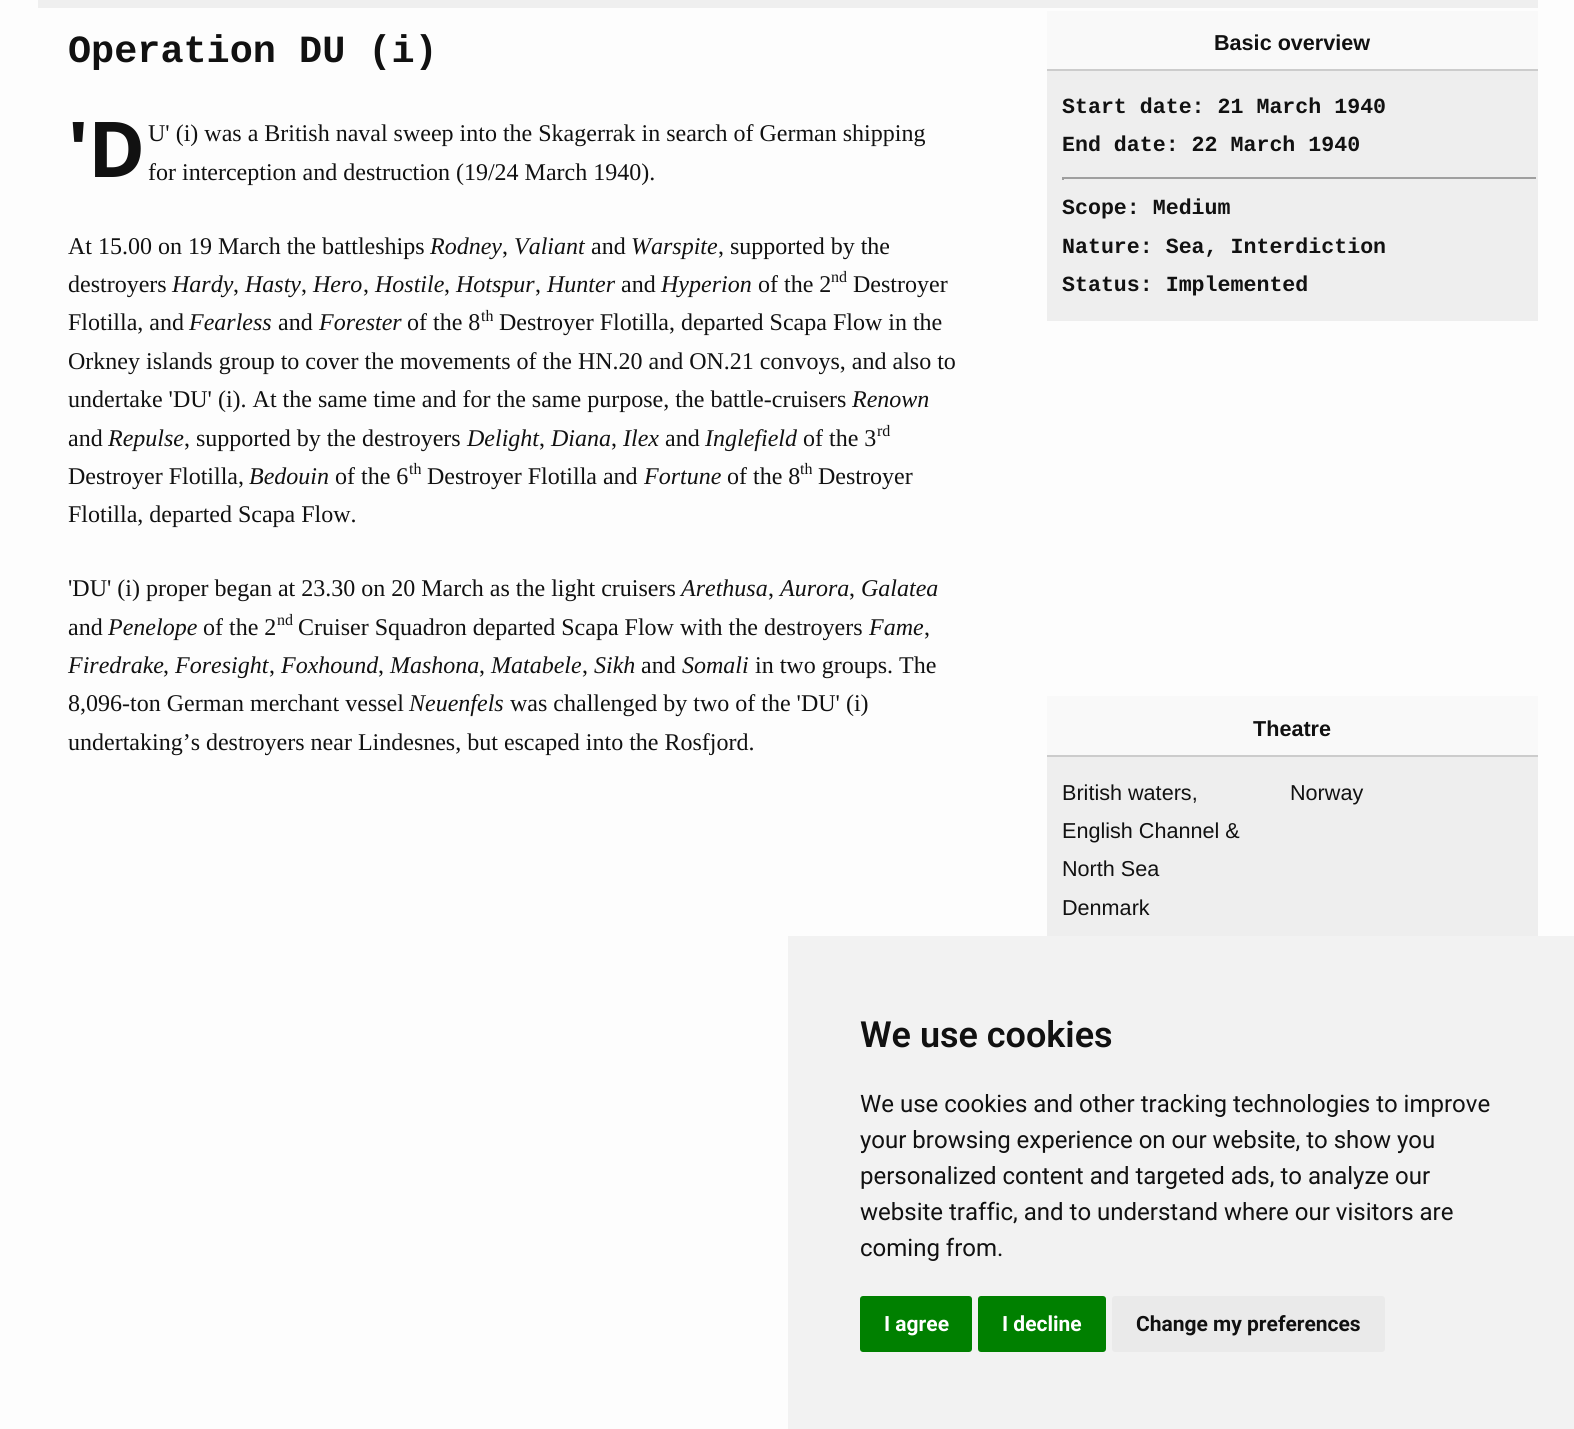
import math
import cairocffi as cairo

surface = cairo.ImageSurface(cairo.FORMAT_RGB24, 1574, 1429)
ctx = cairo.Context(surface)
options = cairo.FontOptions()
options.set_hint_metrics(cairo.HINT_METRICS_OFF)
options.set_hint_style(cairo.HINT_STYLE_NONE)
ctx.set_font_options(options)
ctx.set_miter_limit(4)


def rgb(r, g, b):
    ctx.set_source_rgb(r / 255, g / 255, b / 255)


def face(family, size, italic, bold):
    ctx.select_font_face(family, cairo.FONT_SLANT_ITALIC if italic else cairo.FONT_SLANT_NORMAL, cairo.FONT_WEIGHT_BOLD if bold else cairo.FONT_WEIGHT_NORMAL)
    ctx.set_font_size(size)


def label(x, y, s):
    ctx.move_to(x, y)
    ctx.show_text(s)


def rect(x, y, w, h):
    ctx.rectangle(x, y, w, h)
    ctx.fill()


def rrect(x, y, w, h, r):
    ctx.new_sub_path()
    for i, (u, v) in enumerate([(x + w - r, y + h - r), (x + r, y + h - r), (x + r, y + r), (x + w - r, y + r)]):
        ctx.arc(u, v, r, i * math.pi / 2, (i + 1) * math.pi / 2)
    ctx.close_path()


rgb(253, 253, 253)
ctx.paint()
rgb(239, 239, 239)
rect(38, 0, 1500, 8)
face('Liberation Mono', 38.5, 0, 1)
rgb(17, 17, 17)
label(68, 62, 'Operation DU (i)')
face('Noto Sans', 77, 0, 1)
label(68, 177, '\'D')
face('Liberation Serif', 24, 0, 0)
label(148, 141, 'U\' (i) was a British naval sweep into the Skagerrak in search of German shipping')
label(148, 180, 'for interception and destruction (19/24 March 1940).')
label(68, 254, 'At 15.00 on 19 March the battleships')
face('Liberation Serif', 24, 1, 0)
label(430, 254, 'Rodney')
face('Liberation Serif', 24, 0, 0)
label(502, 254, ',')
face('Liberation Serif', 24, 1, 0)
label(514, 254, 'Valiant')
face('Liberation Serif', 24, 0, 0)
label(591, 254, 'and')
face('Liberation Serif', 24, 1, 0)
label(631, 254, 'Warspite')
face('Liberation Serif', 24, 0, 0)
label(718, 254, ', supported by the')
label(68, 292, 'destroyers')
face('Liberation Serif', 24, 1, 0)
label(172, 292, 'Hardy')
face('Liberation Serif', 24, 0, 0)
label(233, 292, ',')
face('Liberation Serif', 24, 1, 0)
label(245, 292, 'Hasty')
face('Liberation Serif', 24, 0, 0)
label(301, 292, ',')
face('Liberation Serif', 24, 1, 0)
label(313, 292, 'Hero')
face('Liberation Serif', 24, 0, 0)
label(363, 292, ',')
face('Liberation Serif', 24, 1, 0)
label(375, 292, 'Hostile')
face('Liberation Serif', 24, 0, 0)
label(444, 292, ',')
face('Liberation Serif', 24, 1, 0)
label(456, 292, 'Hotspur')
face('Liberation Serif', 24, 0, 0)
label(535, 292, ',')
face('Liberation Serif', 24, 1, 0)
label(547, 292, 'Hunter')
face('Liberation Serif', 24, 0, 0)
label(621, 292, 'and')
face('Liberation Serif', 24, 1, 0)
label(661, 292, 'Hyperion')
face('Liberation Serif', 24, 0, 0)
label(758, 292, 'of the 2')
face('Liberation Serif', 16, 0, 0)
label(831, 282, 'nd')
face('Liberation Serif', 24, 0, 0)
label(853, 292, 'Destroyer')
label(68, 330, 'Flotilla, and')
face('Liberation Serif', 24, 1, 0)
label(189, 330, 'Fearless')
face('Liberation Serif', 24, 0, 0)
label(278, 330, 'and')
face('Liberation Serif', 24, 1, 0)
label(319, 330, 'Forester')
face('Liberation Serif', 24, 0, 0)
label(407, 330, 'of the 8')
face('Liberation Serif', 16, 0, 0)
label(481, 321, 'th')
face('Liberation Serif', 24, 0, 0)
label(499, 330, 'Destroyer Flotilla, departed Scapa Flow in the')
label(68, 369, 'Orkney islands group to cover the movements of the HN.20 and ON.21 convoys, and also to')
label(68, 407, 'undertake \'DU\' (i). At the same time and for the same purpose, the battle-cruisers')
face('Liberation Serif', 24, 1, 0)
label(852, 407, 'Renown')
face('Liberation Serif', 24, 0, 0)
label(68, 446, 'and')
face('Liberation Serif', 24, 1, 0)
label(108, 446, 'Repulse')
face('Liberation Serif', 24, 0, 0)
label(184, 446, ', supported by the destroyers')
face('Liberation Serif', 24, 1, 0)
label(467, 446, 'Delight')
face('Liberation Serif', 24, 0, 0)
label(539, 446, ',')
face('Liberation Serif', 24, 1, 0)
label(551, 446, 'Diana')
face('Liberation Serif', 24, 0, 0)
label(611, 446, ',')
face('Liberation Serif', 24, 1, 0)
label(623, 446, 'Ilex')
face('Liberation Serif', 24, 0, 0)
label(665, 446, 'and')
face('Liberation Serif', 24, 1, 0)
label(705, 446, 'Inglefield')
face('Liberation Serif', 24, 0, 0)
label(803, 446, 'of the 3')
face('Liberation Serif', 16, 0, 0)
label(877, 436, 'rd')
face('Liberation Serif', 24, 0, 0)
label(68, 484, 'Destroyer Flotilla,')
face('Liberation Serif', 24, 1, 0)
label(249, 484, 'Bedouin')
face('Liberation Serif', 24, 0, 0)
label(335, 484, 'of the 6')
face('Liberation Serif', 16, 0, 0)
label(409, 474, 'th')
face('Liberation Serif', 24, 0, 0)
label(427, 484, 'Destroyer Flotilla and')
face('Liberation Serif', 24, 1, 0)
label(644, 484, 'Fortune')
face('Liberation Serif', 24, 0, 0)
label(727, 484, 'of the 8')
face('Liberation Serif', 16, 0, 0)
label(800, 474, 'th')
face('Liberation Serif', 24, 0, 0)
label(818, 484, 'Destroyer')
label(68, 522, 'Flotilla, departed Scapa Flow.')
label(68, 596, '\'DU\' (i) proper began at 23.30 on 20 March as the light cruisers')
face('Liberation Serif', 24, 1, 0)
label(681, 596, 'Arethusa')
face('Liberation Serif', 24, 0, 0)
label(768, 596, ',')
face('Liberation Serif', 24, 1, 0)
label(780, 596, 'Aurora')
face('Liberation Serif', 24, 0, 0)
label(849, 596, ',')
face('Liberation Serif', 24, 1, 0)
label(861, 596, 'Galatea')
face('Liberation Serif', 24, 0, 0)
label(68, 635, 'and')
face('Liberation Serif', 24, 1, 0)
label(108, 635, 'Penelope')
face('Liberation Serif', 24, 0, 0)
label(203, 635, 'of the 2')
face('Liberation Serif', 16, 0, 0)
label(277, 625, 'nd')
face('Liberation Serif', 24, 0, 0)
label(298, 635, 'Cruiser Squadron departed Scapa Flow with the destroyers')
face('Liberation Serif', 24, 1, 0)
label(869, 635, 'Fame')
face('Liberation Serif', 24, 0, 0)
label(924, 635, ',')
face('Liberation Serif', 24, 1, 0)
label(68, 673, 'Firedrake')
face('Liberation Serif', 24, 0, 0)
label(163, 673, ',')
face('Liberation Serif', 24, 1, 0)
label(175, 673, 'Foresight')
face('Liberation Serif', 24, 0, 0)
label(269, 673, ',')
face('Liberation Serif', 24, 1, 0)
label(281, 673, 'Foxhound')
face('Liberation Serif', 24, 0, 0)
label(378, 673, ',')
face('Liberation Serif', 24, 1, 0)
label(390, 673, 'Mashona')
face('Liberation Serif', 24, 0, 0)
label(479, 673, ',')
face('Liberation Serif', 24, 1, 0)
label(491, 673, 'Matabele')
face('Liberation Serif', 24, 0, 0)
label(582, 673, ',')
face('Liberation Serif', 24, 1, 0)
label(594, 673, 'Sikh')
face('Liberation Serif', 24, 0, 0)
label(641, 673, 'and')
face('Liberation Serif', 24, 1, 0)
label(682, 673, 'Somali')
face('Liberation Serif', 24, 0, 0)
label(755, 673, 'in two groups. The')
label(68, 711, '8,096-ton German merchant vessel')
face('Liberation Serif', 24, 1, 0)
label(409, 711, 'Neuenfels')
face('Liberation Serif', 24, 0, 0)
label(510, 711, 'was challenged by two of the \'DU\' (i)')
label(68, 750, 'undertaking’s destroyers near Lindesnes, but escaped into the Rosfjord.')
rgb(238, 238, 238)
rect(1047, 71, 491, 250)
rgb(249, 249, 249)
rect(1047, 11, 491, 58)
rgb(204, 204, 204)
rect(1047, 69, 491, 2)
face('Liberation Sans', 21.6, 0, 1)
rgb(17, 17, 17)
label(1214, 50, 'Basic overview')
face('Liberation Mono', 21.6, 0, 1)
label(1062, 113, 'Start date: 21 March 1940')
label(1062, 151, 'End date: 22 March 1940')
rgb(159, 159, 159)
rect(1062, 177, 476, 2)
rgb(238, 238, 238)
rect(1536, 177, 2, 3)
rgb(159, 159, 159)
rect(1062, 177, 2, 3)
rgb(17, 17, 17)
label(1062, 214, 'Scope: Medium')
label(1062, 253, 'Nature: Sea, Interdiction')
label(1062, 291, 'Status: Implemented')
rgb(238, 238, 238)
rect(1047, 757, 491, 179)
rgb(249, 249, 249)
rect(1047, 696, 491, 59)
rgb(204, 204, 204)
rect(1047, 755, 491, 2)
face('Liberation Sans', 21.6, 0, 1)
rgb(17, 17, 17)
label(1253, 736, 'Theatre')
face('Liberation Sans', 21.6, 0, 0)
label(1062, 800, 'British waters,')
label(1062, 838, 'English Channel &')
label(1062, 876, 'North Sea')
label(1062, 915, 'Denmark')
label(1290, 800, 'Norway')
rgb(242, 242, 242)
rect(788, 936, 786, 493)
face('Roboto SemiBold', 36, 0, 0)
rgb(17, 17, 17)
label(860, 1047, 'We use cookies')
face('Roboto', 24, 0, 0)
label(860, 1112, 'We use cookies and other tracking technologies to improve')
label(860, 1148, 'your browsing experience on our website, to show you')
label(860, 1184, 'personalized content and targeted ads, to analyze our')
label(860, 1220, 'website traffic, and to understand where our visitors are')
label(860, 1256, 'coming from.')
rgb(0, 128, 0)
rrect(860, 1296, 112, 56, 3)
ctx.fill()
face('Roboto', 21, 0, 1)
rgb(255, 255, 255)
label(884, 1331, 'I agree')
rgb(0, 128, 0)
rrect(978, 1296, 128, 56, 3)
ctx.fill()
rgb(255, 255, 255)
label(1002, 1331, 'I decline')
rgb(234, 234, 234)
rrect(1112, 1296, 273, 56, 3)
ctx.fill()
rgb(17, 17, 17)
label(1136, 1331, 'Change my preferences')
surface.write_to_png('render.png')
